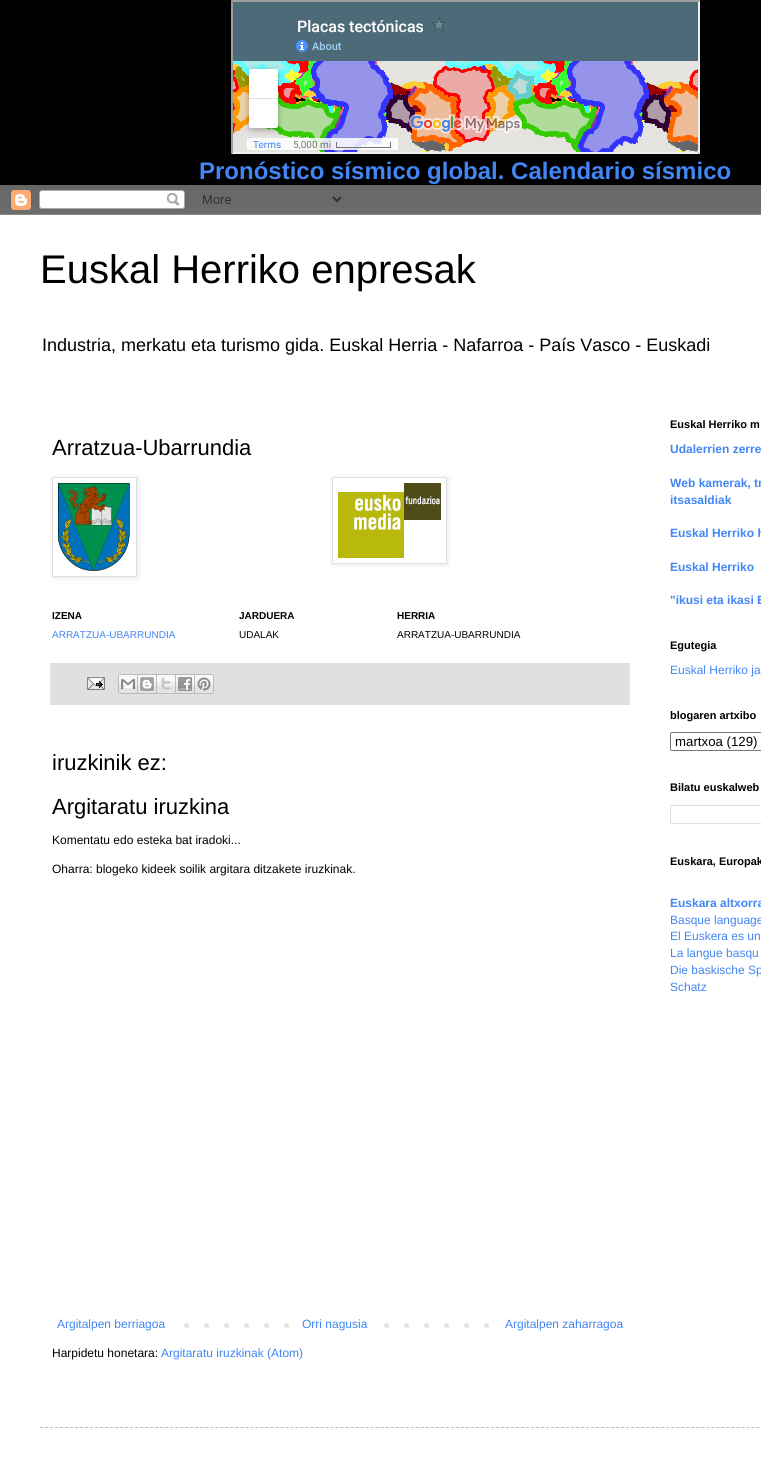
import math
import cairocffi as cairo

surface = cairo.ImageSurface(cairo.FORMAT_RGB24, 761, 1472)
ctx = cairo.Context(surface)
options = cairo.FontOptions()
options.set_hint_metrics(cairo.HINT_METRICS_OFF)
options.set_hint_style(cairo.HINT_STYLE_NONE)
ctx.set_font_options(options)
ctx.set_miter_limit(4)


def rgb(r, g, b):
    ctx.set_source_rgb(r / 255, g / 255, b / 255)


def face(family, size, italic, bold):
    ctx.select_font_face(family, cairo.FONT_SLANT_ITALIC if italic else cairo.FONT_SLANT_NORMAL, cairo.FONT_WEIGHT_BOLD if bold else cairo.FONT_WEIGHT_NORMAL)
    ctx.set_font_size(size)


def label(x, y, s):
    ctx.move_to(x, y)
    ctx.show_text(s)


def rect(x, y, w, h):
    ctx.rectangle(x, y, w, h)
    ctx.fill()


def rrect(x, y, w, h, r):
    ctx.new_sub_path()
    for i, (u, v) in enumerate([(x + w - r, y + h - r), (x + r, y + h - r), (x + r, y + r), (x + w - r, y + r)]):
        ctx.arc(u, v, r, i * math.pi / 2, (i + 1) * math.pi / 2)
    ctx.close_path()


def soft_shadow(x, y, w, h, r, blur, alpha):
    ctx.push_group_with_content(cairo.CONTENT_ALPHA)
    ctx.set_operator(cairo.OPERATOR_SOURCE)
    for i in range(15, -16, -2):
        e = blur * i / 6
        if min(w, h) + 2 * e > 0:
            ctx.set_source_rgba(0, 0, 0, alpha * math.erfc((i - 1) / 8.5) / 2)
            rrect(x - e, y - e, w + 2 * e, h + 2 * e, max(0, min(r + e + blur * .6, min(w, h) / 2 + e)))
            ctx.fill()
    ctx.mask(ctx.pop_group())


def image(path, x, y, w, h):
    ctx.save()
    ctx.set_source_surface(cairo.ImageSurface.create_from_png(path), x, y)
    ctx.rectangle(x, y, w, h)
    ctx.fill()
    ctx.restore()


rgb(255, 255, 255)
ctx.paint()
image('image0.png', 0, 0, 761, 214)
rgb(159, 159, 159)
ctx.new_path()
ctx.move_to(231, 0)
ctx.line_to(700, 0)
ctx.line_to(698, 2)
ctx.line_to(233, 2)
ctx.close_path()
ctx.fill()
rgb(238, 238, 238)
ctx.new_path()
ctx.move_to(700, 0)
ctx.line_to(700, 154)
ctx.line_to(698, 152)
ctx.line_to(698, 2)
ctx.close_path()
ctx.fill()
ctx.new_path()
ctx.move_to(700, 154)
ctx.line_to(231, 154)
ctx.line_to(233, 152)
ctx.line_to(698, 152)
ctx.close_path()
ctx.fill()
rgb(159, 159, 159)
ctx.new_path()
ctx.move_to(231, 154)
ctx.line_to(231, 0)
ctx.line_to(233, 2)
ctx.line_to(233, 152)
ctx.close_path()
ctx.fill()
image('image1.png', 233, 2, 465, 150)
face('Liberation Sans', 24, 0, 1)
rgb(66, 133, 244)
label(199, 179, 'Pronóstico sísmico global. Calendario sísmico')
image('image2.png', 0, 185, 761, 30)
face('Liberation Sans', 40, 0, 0)
rgb(0, 0, 0)
label(40, 283, 'Euskal Herriko enpresak')
face('Liberation Sans', 18, 0, 0)
label(42, 351, 'Industria, merkatu eta turismo gida. Euskal Herria - Nafarroa - País Vasco - Euskadi')
face('Liberation Sans', 22, 0, 0)
label(52, 455, 'Arratzua-Ubarrundia')
ctx.save()
ctx.set_fill_rule(cairo.FILL_RULE_EVEN_ODD)
ctx.new_path()
ctx.move_to(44, 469)
ctx.line_to(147, 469)
ctx.line_to(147, 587)
ctx.line_to(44, 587)
ctx.close_path()
ctx.move_to(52, 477)
ctx.line_to(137, 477)
ctx.line_to(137, 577)
ctx.line_to(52, 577)
ctx.close_path()
ctx.clip()
rgb(0, 0, 0)
soft_shadow(53, 478, 85, 100, 0, 2.5, 0.1)
ctx.restore()
ctx.rectangle(52.5, 477.5, 84, 99)
rgb(224, 224, 224)
ctx.set_line_width(1)
ctx.stroke()
image('image3.png', 58, 483, 72, 88)
ctx.save()
ctx.set_fill_rule(cairo.FILL_RULE_EVEN_ODD)
ctx.new_path()
ctx.move_to(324, 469)
ctx.line_to(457, 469)
ctx.line_to(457, 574)
ctx.line_to(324, 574)
ctx.close_path()
ctx.move_to(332, 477)
ctx.line_to(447, 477)
ctx.line_to(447, 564)
ctx.line_to(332, 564)
ctx.close_path()
ctx.clip()
rgb(0, 0, 0)
soft_shadow(333, 478, 115, 87, 0, 2.5, 0.1)
ctx.restore()
ctx.rectangle(332.5, 477.5, 114, 86)
ctx.stroke()
image('image4.png', 338, 483, 103, 75)
face('Liberation Sans', 10, 0, 1)
rgb(0, 0, 0)
label(52, 619, 'IZENA')
label(239, 619, 'JARDUERA')
label(397, 619, 'HERRIA')
face('Liberation Sans', 10, 0, 0)
rgb(66, 133, 244)
label(52, 638, 'ARRATZUA-UBARRUNDIA')
rgb(0, 0, 0)
label(239, 638, 'UDALAK')
label(397, 638, 'ARRATZUA-UBARRUNDIA')
rgb(224, 224, 224)
rect(50, 663, 580, 42)
image('image5.png', 87, 677, 18, 13)
image('image6.png', 118, 674, 20, 20)
image('image7.png', 138, 674, 19, 20)
image('image8.png', 157, 674, 19, 20)
image('image9.png', 176, 674, 19, 20)
image('image10.png', 195, 674, 19, 20)
face('Liberation Sans', 22, 0, 0)
rgb(0, 0, 0)
label(52, 770, 'iruzkinik ez:')
label(52, 814, 'Argitaratu iruzkina')
face('Liberation Sans', 12, 0, 0)
label(52, 844, 'Komentatu edo esteka bat iradoki...')
label(52, 873, 'Oharra: blogeko kideek soilik argitara ditzakete iruzkinak.')
image('image11.png', 184, 1323, 305, 5)
rgb(66, 133, 244)
label(57, 1328, 'Argitalpen berriagoa')
rgb(255, 255, 255)
rect(304, 1323, 66, 5)
rgb(66, 133, 244)
label(302, 1328, 'Orri nagusia')
label(505, 1328, 'Argitalpen zaharragoa')
rgb(0, 0, 0)
label(52, 1357, 'Harpidetu honetara:')
rgb(66, 133, 244)
label(161, 1357, 'Argitaratu iruzkinak (Atom)')
face('Liberation Sans', 11, 0, 1)
rgb(0, 0, 0)
label(670, 428, 'Euskal Herriko m')
face('Liberation Sans', 12, 0, 1)
rgb(66, 133, 244)
label(670, 453, 'Udalerrien zerre')
label(670, 487, 'Web kamerak, tr')
label(670, 504, 'itsasaldiak')
label(670, 537, 'Euskal Herriko h')
label(670, 571, 'Euskal Herriko')
label(670, 604, '"ikusi eta ikasi E')
face('Liberation Sans', 11, 0, 1)
rgb(0, 0, 0)
label(670, 649, 'Egutegia')
face('Liberation Sans', 12, 0, 0)
rgb(66, 133, 244)
label(670, 674, 'Euskal Herriko ja')
face('Liberation Sans', 11, 0, 1)
rgb(0, 0, 0)
label(670, 719, 'blogaren artxibo')
rrect(670.5, 732.5, 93, 18, 1.5)
rgb(118, 118, 118)
ctx.stroke()
face('Liberation Sans', 13.25, 0, 0)
rgb(0, 0, 0)
label(675, 746, 'martxoa (129)')
face('Liberation Sans', 11, 0, 1)
label(670, 791, 'Bilatu euskalweb')
ctx.rectangle(670.5, 805.5, 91, 18)
rgb(221, 221, 221)
ctx.stroke()
rgb(0, 0, 0)
label(670, 865, 'Euskara, Europak')
face('Liberation Sans', 12, 0, 1)
rgb(66, 133, 244)
label(670, 907, 'Euskara altxorra')
face('Liberation Sans', 12, 0, 0)
label(670, 924, 'Basque language')
label(670, 940, 'El Euskera es un')
label(670, 957, 'La langue basqu')
label(670, 974, 'Die baskische Sp')
label(670, 991, 'Schatz')
ctx.new_path()
ctx.move_to(40, 1427.5)
ctx.line_to(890, 1427.5)
rgb(187, 187, 187)
ctx.set_dash([3, 2.01])
ctx.stroke()
surface.write_to_png('render.png')
